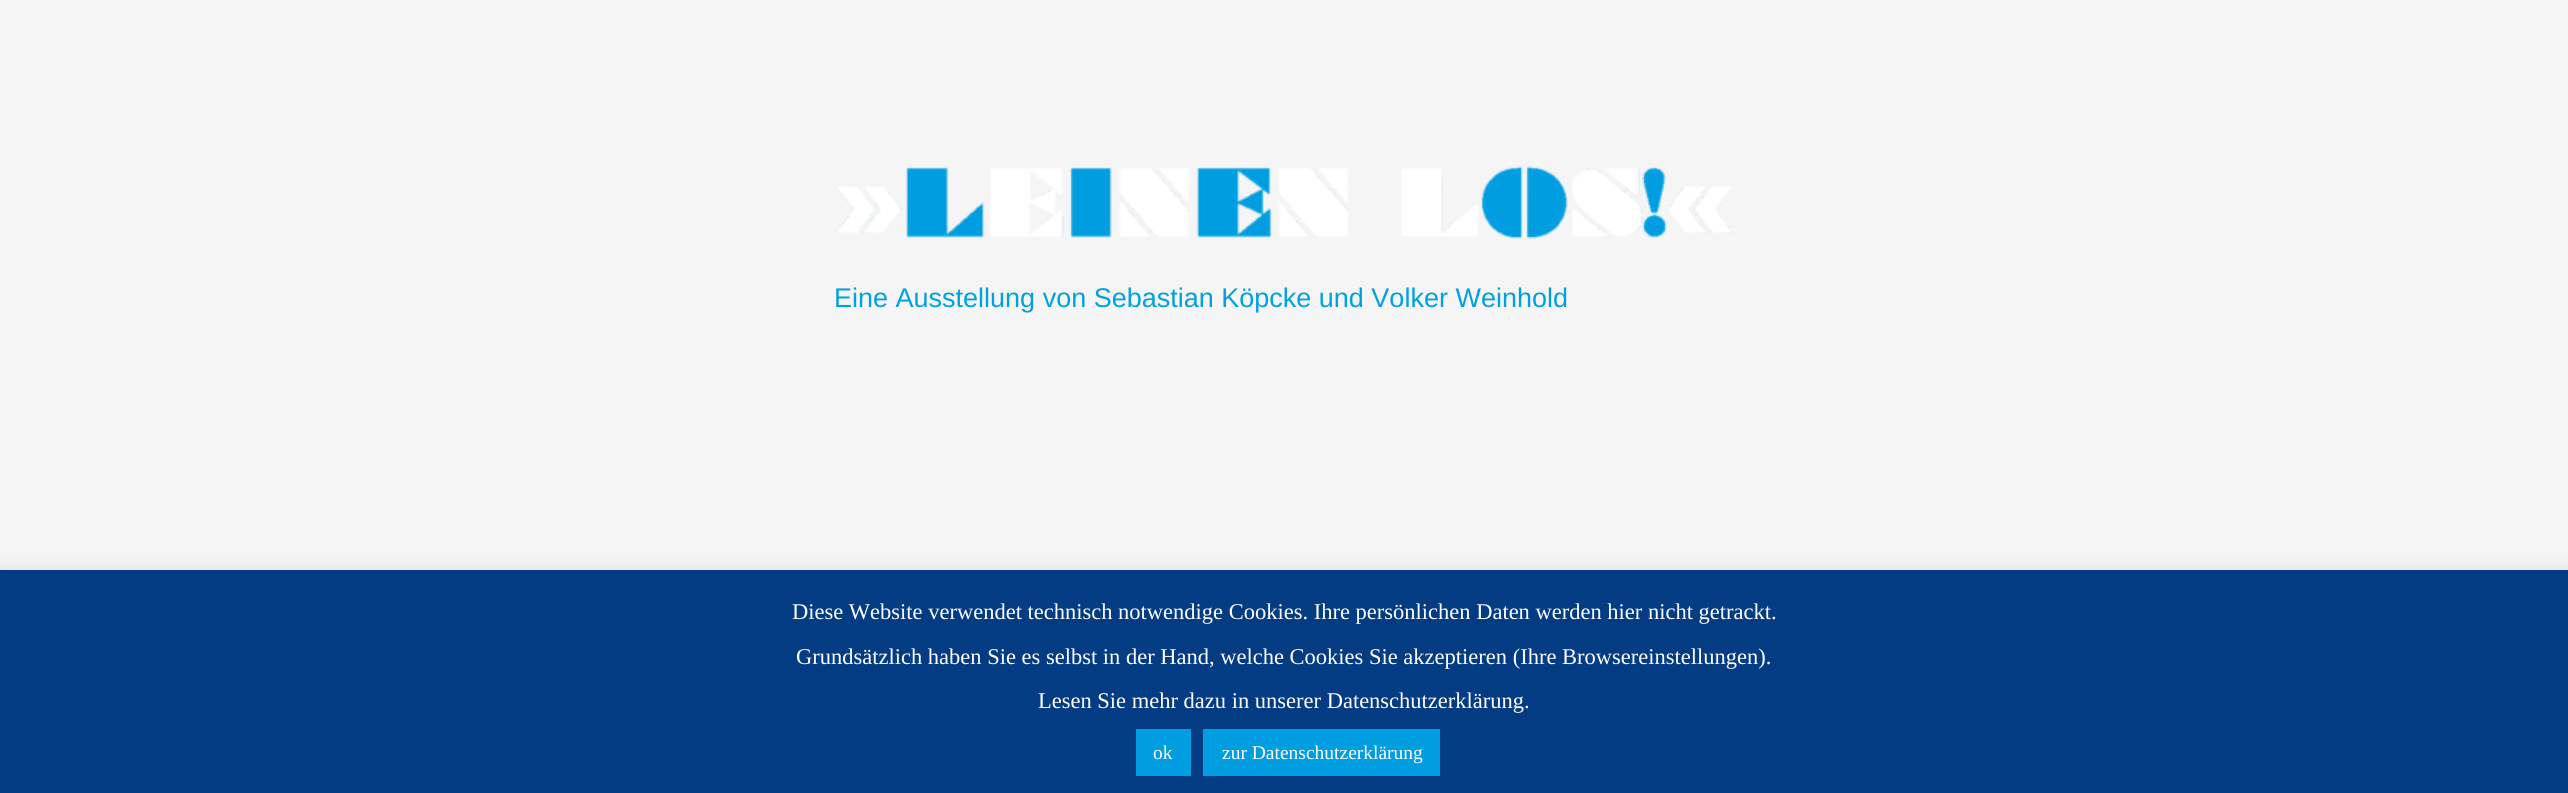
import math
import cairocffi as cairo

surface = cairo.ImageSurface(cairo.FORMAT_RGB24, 2568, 793)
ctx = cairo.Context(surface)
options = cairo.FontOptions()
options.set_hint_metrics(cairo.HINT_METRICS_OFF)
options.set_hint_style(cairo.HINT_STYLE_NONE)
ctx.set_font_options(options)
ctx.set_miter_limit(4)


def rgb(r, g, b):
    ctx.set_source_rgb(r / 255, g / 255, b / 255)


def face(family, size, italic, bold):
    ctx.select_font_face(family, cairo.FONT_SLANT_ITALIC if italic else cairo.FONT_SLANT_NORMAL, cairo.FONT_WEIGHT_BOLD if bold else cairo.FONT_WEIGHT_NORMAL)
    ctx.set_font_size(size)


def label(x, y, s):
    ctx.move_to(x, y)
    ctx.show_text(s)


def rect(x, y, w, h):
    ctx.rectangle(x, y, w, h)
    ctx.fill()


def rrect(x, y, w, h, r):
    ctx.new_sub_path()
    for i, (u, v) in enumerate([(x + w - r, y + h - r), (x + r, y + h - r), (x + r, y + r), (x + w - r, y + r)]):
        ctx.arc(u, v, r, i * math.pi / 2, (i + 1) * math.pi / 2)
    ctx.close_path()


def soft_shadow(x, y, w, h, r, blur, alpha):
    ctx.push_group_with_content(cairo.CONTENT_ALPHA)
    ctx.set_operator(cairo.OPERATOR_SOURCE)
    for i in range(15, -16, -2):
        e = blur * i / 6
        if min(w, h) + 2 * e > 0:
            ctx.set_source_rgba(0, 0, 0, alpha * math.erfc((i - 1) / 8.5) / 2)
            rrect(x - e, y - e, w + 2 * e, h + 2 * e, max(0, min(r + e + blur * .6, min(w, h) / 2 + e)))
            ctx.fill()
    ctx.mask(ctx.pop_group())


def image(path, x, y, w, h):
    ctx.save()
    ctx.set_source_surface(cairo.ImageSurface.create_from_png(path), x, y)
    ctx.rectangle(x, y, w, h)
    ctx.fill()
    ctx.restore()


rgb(245, 245, 245)
ctx.paint()
image('image0.png', 836, 166, 897, 74)
face('Liberation Sans', 27, 0, 0)
rgb(0, 161, 222)
label(834, 307, 'Eine Ausstellung von Sebastian Köpcke und Volker Weinhold')
rgb(172, 171, 171)
soft_shadow(0, 569, 2568, 223, 0, 7.5, 0.3)
rgb(4, 60, 132)
rect(0, 570, 2568, 223)
face('Liberation Serif', 22.5, 0, 0)
rgb(255, 255, 255)
label(792, 619, 'Diese Website verwendet technisch notwendige Cookies. Ihre persönlichen Daten werden hier nicht getrackt.')
label(796, 664, 'Grundsätzlich haben Sie es selbst in der Hand, welche Cookies Sie akzeptieren (Ihre Browsereinstellungen).')
label(1038, 708, 'Lesen Sie mehr dazu in unserer Datenschutzerklärung.')
rgb(0, 157, 224)
rect(1136, 729, 55, 47)
face('Liberation Serif', 19.5, 0, 0)
rgb(255, 255, 255)
label(1153, 759, 'ok')
rgb(0, 157, 224)
rect(1203, 729, 237, 47)
rgb(255, 255, 255)
label(1222, 759, 'zur Datenschutzerklärung')
surface.write_to_png('render.png')
